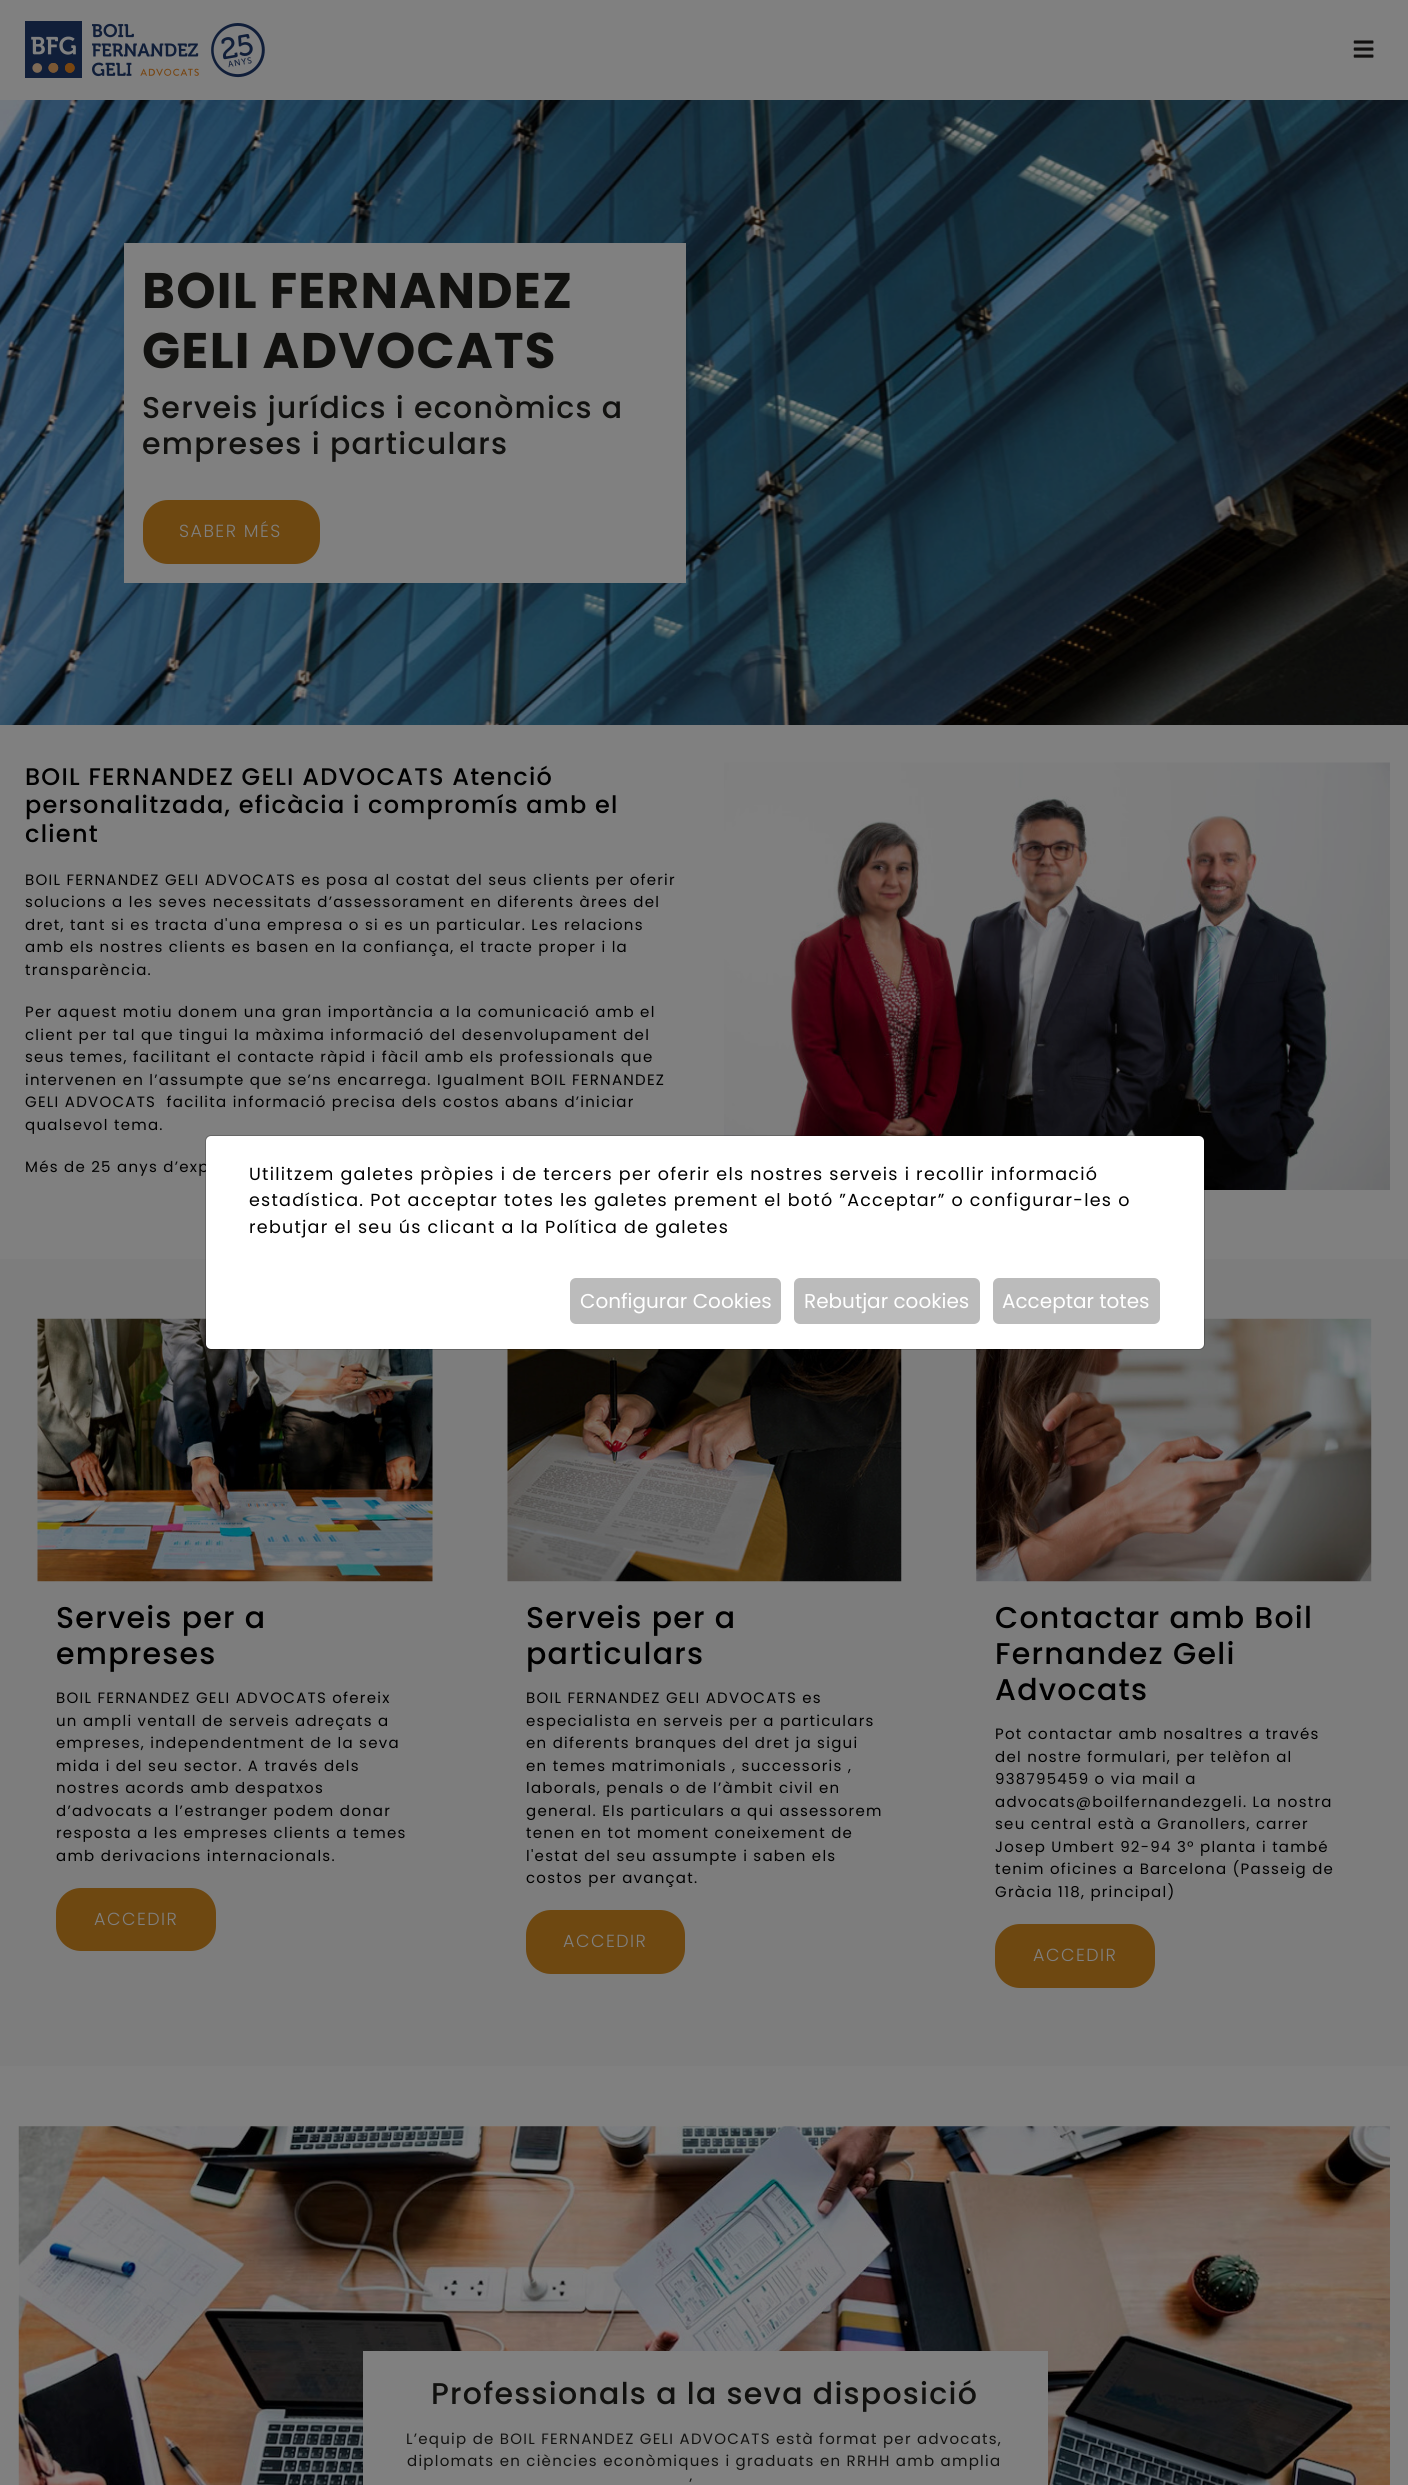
import math
import cairocffi as cairo

surface = cairo.ImageSurface(cairo.FORMAT_RGB24, 1408, 2485)
ctx = cairo.Context(surface)
options = cairo.FontOptions()
options.set_hint_metrics(cairo.HINT_METRICS_OFF)
options.set_hint_style(cairo.HINT_STYLE_NONE)
ctx.set_font_options(options)
ctx.set_miter_limit(4)


def rgb(r, g, b):
    ctx.set_source_rgb(r / 255, g / 255, b / 255)


def face(family, size, italic, bold):
    ctx.select_font_face(family, cairo.FONT_SLANT_ITALIC if italic else cairo.FONT_SLANT_NORMAL, cairo.FONT_WEIGHT_BOLD if bold else cairo.FONT_WEIGHT_NORMAL)
    ctx.set_font_size(size)


def label(x, y, s):
    ctx.move_to(x, y)
    ctx.show_text(s)


def tracked(x, y, s, letter, word):
    ctx.move_to(x, y)
    for ch in s:
        ctx.show_text(ch)
        ctx.rel_move_to(letter + word * (ch == ' '), 0)


def rect(x, y, w, h):
    ctx.rectangle(x, y, w, h)
    ctx.fill()


def rrect(x, y, w, h, r):
    ctx.new_sub_path()
    for i, (u, v) in enumerate([(x + w - r, y + h - r), (x + r, y + h - r), (x + r, y + r), (x + w - r, y + r)]):
        ctx.arc(u, v, r, i * math.pi / 2, (i + 1) * math.pi / 2)
    ctx.close_path()


def image(path, x, y, w, h):
    ctx.save()
    ctx.set_source_surface(cairo.ImageSurface.create_from_png(path), x, y)
    ctx.rectangle(x, y, w, h)
    ctx.fill()
    ctx.restore()


rgb(128, 128, 128)
ctx.paint()
image('image0.png', 25, 21, 240, 57)
image('image1.png', 1353, 40, 21, 18)
image('image2.png', 0, 100, 1408, 625)
rgb(128, 128, 128)
rect(124, 243, 562, 340)
face('Poppins', 50, 0, 1)
rgb(17, 17, 15)
tracked(142, 308, 'BOIL FERNANDEZ', 1.25, 0)
tracked(142, 368, 'GELI ADVOCATS', 1.25, 0)
face('Poppins Medium', 30, 0, 0)
tracked(142, 418, 'Serveis jurídics i econòmics a', 1.25, 0)
tracked(142, 454, 'empreses i particulars', 1.25, 0)
rgb(110, 72, 17)
rrect(143, 500, 177, 64, 25)
ctx.fill()
face('Poppins Light', 17.5, 0, 0)
rgb(128, 128, 128)
tracked(179, 537, 'SABER MÉS', 1.5, 0)
face('Poppins Medium', 24, 0, 0)
rgb(0, 0, 0)
tracked(25, 785, 'BOIL FERNANDEZ GELI ADVOCATS Atenció', 1.25, 0)
tracked(25, 813, 'personalitzada, eficàcia i compromís amb el', 1.25, 0)
tracked(25, 842, 'client', 1.25, 0)
face('Poppins', 15, 0, 0)
tracked(25, 885, 'BOIL FERNANDEZ GELI ADVOCATS es posa al costat del seus clients per oferir', 1.25, 0)
tracked(25, 907, 'solucions a les seves necessitats d’assessorament en diferents àrees del', 1.25, 0)
tracked(25, 930, 'dret, tant si es tracta d\'una empresa o si es un particular. Les relacions', 1.25, 0)
tracked(25, 952, 'amb els nostres clients es basen en la confiança, el tracte proper i la', 1.25, 0)
tracked(25, 975, 'transparència.', 1.25, 0)
tracked(25, 1017, 'Per aquest motiu donem una gran importància a la comunicació amb el', 1.25, 0)
tracked(25, 1040, 'client per tal que tingui la màxima informació del desenvolupament del', 1.25, 0)
tracked(25, 1062, 'seus temes, facilitant el contacte ràpid i fàcil amb els professionals que', 1.25, 0)
tracked(25, 1085, 'intervenen en l’assumpte que se’ns encarrega. Igualment BOIL FERNANDEZ', 1.25, 0)
tracked(25, 1107, 'GELI ADVOCATS  facilita informació precisa dels costos abans d’iniciar', 1.25, 0)
tracked(25, 1130, 'qualsevol tema.', 1.25, 0)
tracked(25, 1172, 'Més de 25 anys d’exp', 1.25, 0)
image('image3.png', 724, 762, 666, 428)
rgb(125, 125, 125)
rect(0, 1259, 1408, 807)
image('image4.png', 37, 1318, 396, 264)
face('Poppins Medium', 30, 0, 0)
rgb(0, 0, 0)
tracked(56, 1628, 'Serveis per a', 1.25, 0)
tracked(56, 1664, 'empreses', 1.25, 0)
face('Poppins', 15, 0, 0)
tracked(56, 1703, 'BOIL FERNANDEZ GELI ADVOCATS ofereix', 1.25, 0)
tracked(56, 1726, 'un ampli ventall de serveis adreçats a', 1.25, 0)
tracked(56, 1748, 'empreses, independentment de la seva', 1.25, 0)
tracked(56, 1771, 'mida i del seu sector. A través dels', 1.25, 0)
tracked(56, 1793, 'nostres acords amb despatxos', 1.25, 0)
tracked(56, 1816, 'd’advocats a l’estranger podem donar', 1.25, 0)
tracked(56, 1838, 'resposta a les empreses clients a temes', 1.25, 0)
tracked(56, 1861, 'amb derivacions internacionals.', 1.25, 0)
rgb(110, 72, 17)
rrect(56, 1888, 160, 63, 25)
ctx.fill()
face('Poppins Light', 17.5, 0, 0)
rgb(128, 128, 128)
tracked(94, 1925, 'ACCEDIR', 1.5, 0)
image('image5.png', 507, 1349, 395, 233)
face('Poppins Medium', 30, 0, 0)
rgb(0, 0, 0)
tracked(526, 1628, 'Serveis per a', 1.25, 0)
tracked(526, 1664, 'particulars', 1.25, 0)
face('Poppins', 15, 0, 0)
tracked(526, 1703, 'BOIL FERNANDEZ GELI ADVOCATS es', 1.25, 0)
tracked(526, 1726, 'especialista en serveis per a particulars', 1.25, 0)
tracked(526, 1748, 'en diferents branques del dret ja sigui', 1.25, 0)
tracked(526, 1771, 'en temes matrimonials , successoris ,', 1.25, 0)
tracked(526, 1793, 'laborals, penals o de l’àmbit civil en', 1.25, 0)
tracked(526, 1816, 'general. Els particulars a qui assessorem', 1.25, 0)
tracked(526, 1838, 'tenen en tot moment coneixement de', 1.25, 0)
tracked(526, 1861, 'l\'estat del seu assumpte i saben els', 1.25, 0)
tracked(526, 1883, 'costos per avançat.', 1.25, 0)
rgb(110, 72, 17)
rrect(526, 1910, 159, 64, 25)
ctx.fill()
face('Poppins Light', 17.5, 0, 0)
rgb(128, 128, 128)
tracked(563, 1947, 'ACCEDIR', 1.5, 0)
image('image6.png', 976, 1318, 396, 264)
face('Poppins Medium', 30, 0, 0)
rgb(0, 0, 0)
tracked(995, 1628, 'Contactar amb Boil', 1.25, 0)
tracked(995, 1664, 'Fernandez Geli', 1.25, 0)
tracked(995, 1700, 'Advocats', 1.25, 0)
face('Poppins', 15, 0, 0)
tracked(995, 1739, 'Pot contactar amb nosaltres a través', 1.25, 0)
tracked(995, 1762, 'del nostre formulari, per telèfon al', 1.25, 0)
tracked(995, 1784, '938795459 o via mail a', 1.25, 0)
tracked(995, 1807, 'advocats@boilfernandezgeli. La nostra', 1.25, 0)
tracked(995, 1829, 'seu central està a Granollers, carrer', 1.25, 0)
tracked(995, 1852, 'Josep Umbert 92-94 3º planta i també', 1.25, 0)
tracked(995, 1874, 'tenim oficines a Barcelona (Passeig de', 1.25, 0)
tracked(995, 1897, 'Gràcia 118, principal)', 1.25, 0)
rgb(110, 72, 17)
rrect(995, 1924, 160, 64, 25)
ctx.fill()
face('Poppins Light', 17.5, 0, 0)
rgb(128, 128, 128)
tracked(1033, 1961, 'ACCEDIR', 1.5, 0)
image('image7.png', 18, 2126, 1372, 359)
rect(363, 2351, 685, 134)
face('Poppins Medium', 30, 0, 0)
rgb(17, 17, 15)
tracked(431, 2404, 'Professionals a la seva disposició', 1.25, 0)
face('Poppins', 15, 0, 0)
tracked(406, 2444, 'L’equip de BOIL FERNANDEZ GELI ADVOCATS està format per advocats,', 1.25, 0)
tracked(407, 2466, 'diplomats en ciències econòmiques i graduats en RRHH amb amplia', 1.25, 0)
tracked(689, 2489, '’', 1.25, 0)
rgb(255, 255, 255)
rrect(206, 1136, 998, 213, 5)
ctx.fill()
rrect(205.5, 1135.5, 999, 214, 5.5)
ctx.set_source_rgba(0, 0, 0, 0.2)
ctx.set_line_width(1)
ctx.stroke()
face('Poppins', 17.5, 0, 0)
rgb(0, 0, 0)
tracked(249, 1180, 'Utilitzem galetes pròpies i de tercers per oferir els nostres serveis i recollir informació', 1.25, 0)
tracked(249, 1206, 'estadística. Pot acceptar totes les galetes prement el botó ”Acceptar” o configurar-les o', 1.25, 0)
tracked(249, 1233, 'rebutjar el seu ús clicant a la Política de galetes', 1.25, 0)
rgb(187, 187, 187)
rrect(570, 1278, 211, 46, 6)
ctx.fill()
face('Poppins', 20, 0, 0)
rgb(255, 255, 255)
label(580, 1308, 'Configurar Cookies')
rgb(187, 187, 187)
rrect(794, 1278, 186, 46, 6)
ctx.fill()
rgb(255, 255, 255)
label(804, 1308, 'Rebutjar cookies')
rgb(187, 187, 187)
rrect(993, 1278, 167, 46, 6)
ctx.fill()
rgb(255, 255, 255)
label(1002, 1308, 'Acceptar totes')
surface.write_to_png('render.png')
